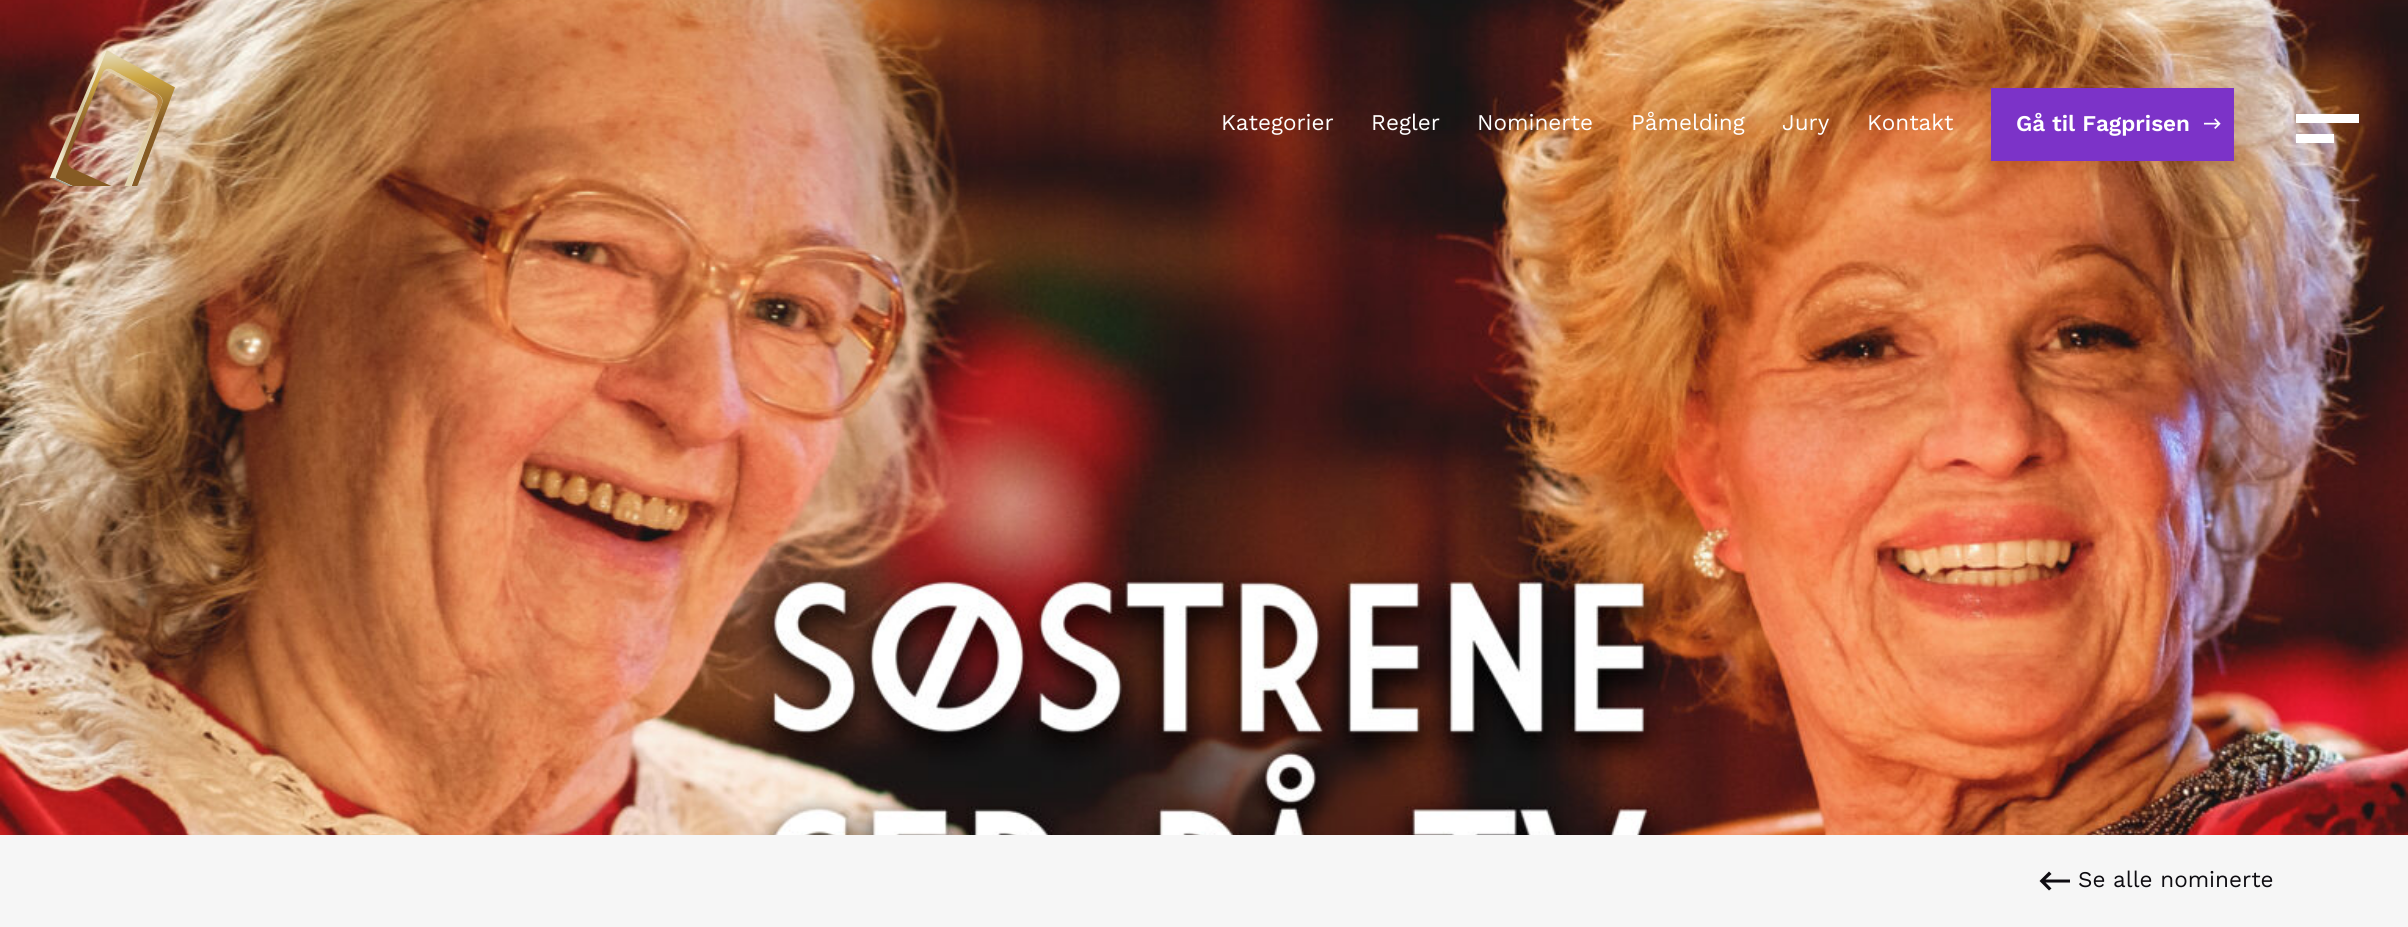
import math
import cairocffi as cairo

surface = cairo.ImageSurface(cairo.FORMAT_RGB24, 2408, 927)
ctx = cairo.Context(surface)
options = cairo.FontOptions()
options.set_hint_metrics(cairo.HINT_METRICS_OFF)
options.set_hint_style(cairo.HINT_STYLE_NONE)
ctx.set_font_options(options)
ctx.set_miter_limit(4)


def rgb(r, g, b):
    ctx.set_source_rgb(r / 255, g / 255, b / 255)


def face(family, size, italic, bold):
    ctx.select_font_face(family, cairo.FONT_SLANT_ITALIC if italic else cairo.FONT_SLANT_NORMAL, cairo.FONT_WEIGHT_BOLD if bold else cairo.FONT_WEIGHT_NORMAL)
    ctx.set_font_size(size)


def label(x, y, s):
    ctx.move_to(x, y)
    ctx.show_text(s)


def rect(x, y, w, h):
    ctx.rectangle(x, y, w, h)
    ctx.fill()


def image(path, x, y, w, h):
    ctx.save()
    ctx.set_source_surface(cairo.ImageSurface.create_from_png(path), x, y)
    ctx.rectangle(x, y, w, h)
    ctx.fill()
    ctx.restore()


rgb(246, 246, 246)
ctx.paint()
image('image2.png', 0, 0, 2408, 835)
image('image0.png', 50, 50, 125, 136)
face('Work Sans', 22.5, 0, 0)
rgb(255, 255, 255)
label(1221, 130, 'Kategorier')
label(1371, 130, 'Regler')
label(1477, 130, 'Nominerte')
label(1631, 130, 'Påmelding')
label(1782, 130, 'Jury')
label(1867, 130, 'Kontakt')
rgb(124, 51, 200)
rect(1991, 88, 243, 73)
image('image1.png', 2204, 118, 17, 11)
face('Work Sans SemiBold', 22.5, 0, 0)
rgb(255, 255, 255)
label(2016, 131, 'Gå til Fagprisen')
rect(2296, 114, 63, 9)
rect(2296, 134, 38, 9)
face('Work Sans', 22.5, 0, 0)
rgb(14, 12, 17)
label(2078, 887, 'Se alle nominerte')
ctx.set_fill_rule(cairo.FILL_RULE_EVEN_ODD)
ctx.new_path()
ctx.move_to(2039.5, 881)
ctx.line_to(2049, 871.5)
ctx.line_to(2051.5, 874)
ctx.line_to(2045.5, 879.5)
ctx.line_to(2070, 879.5)
ctx.line_to(2070, 882.5)
ctx.line_to(2045.5, 882.5)
ctx.line_to(2051.5, 888.5)
ctx.line_to(2049, 890.5)
ctx.close_path()
ctx.fill()
surface.write_to_png('render.png')
